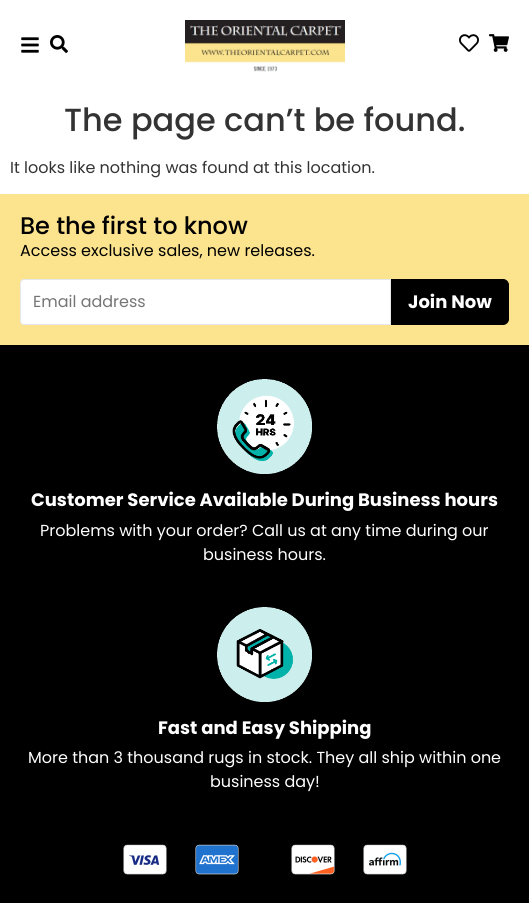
import math
import cairocffi as cairo

surface = cairo.ImageSurface(cairo.FORMAT_RGB24, 529, 922)
ctx = cairo.Context(surface)
options = cairo.FontOptions()
options.set_hint_metrics(cairo.HINT_METRICS_OFF)
options.set_hint_style(cairo.HINT_STYLE_NONE)
ctx.set_font_options(options)
ctx.set_miter_limit(4)


def rgb(r, g, b):
    ctx.set_source_rgb(r / 255, g / 255, b / 255)


def face(family, size, italic, bold):
    ctx.select_font_face(family, cairo.FONT_SLANT_ITALIC if italic else cairo.FONT_SLANT_NORMAL, cairo.FONT_WEIGHT_BOLD if bold else cairo.FONT_WEIGHT_NORMAL)
    ctx.set_font_size(size)


def label(x, y, s):
    ctx.move_to(x, y)
    ctx.show_text(s)


def rect(x, y, w, h):
    ctx.rectangle(x, y, w, h)
    ctx.fill()


def image(path, x, y, w, h):
    ctx.save()
    ctx.set_source_surface(cairo.ImageSurface.create_from_png(path), x, y)
    ctx.rectangle(x, y, w, h)
    ctx.fill()
    ctx.restore()


rgb(255, 255, 255)
ctx.paint()
image('image0.png', 21, 37, 18, 16)
image('image1.png', 50, 35, 18, 18)
image('image2.png', 185, 20, 160, 52)
image('image3.png', 459, 34, 20, 18)
image('image4.png', 489, 34, 20, 18)
face('Poppins Medium', 32, 0, 0)
rgb(51, 51, 51)
label(64, 131, 'The page can’t be found.')
face('Poppins', 16, 0, 0)
label(10, 173, 'It looks like nothing was found at this location.')
rgb(252, 227, 142)
rect(0, 194, 529, 151)
face('Poppins Medium', 24, 0, 0)
rgb(0, 0, 0)
label(20, 234, 'Be the first to know')
face('Poppins', 16, 0, 0)
label(20, 256, 'Access exclusive sales, new releases.')
rgb(255, 255, 255)
ctx.new_path()
ctx.move_to(24, 279.5)
ctx.line_to(390.5, 279.5)
ctx.line_to(390.5, 324.5)
ctx.line_to(24, 324.5)
ctx.curve_to(22, 324.5, 20.5, 323, 20.5, 321)
ctx.line_to(20.5, 283)
ctx.curve_to(20.5, 281, 22, 279.5, 24, 279.5)
ctx.close_path()
ctx.fill_preserve()
rgb(229, 231, 235)
ctx.set_line_width(1)
ctx.stroke()
rgb(117, 117, 117)
label(33, 307, 'Email address')
rgb(0, 0, 0)
ctx.new_path()
ctx.move_to(391.5, 279.5)
ctx.line_to(503, 279.5)
ctx.curve_to(506, 279.5, 508.5, 282, 508.5, 285)
ctx.line_to(508.5, 319)
ctx.curve_to(508.5, 322, 506, 324.5, 503, 324.5)
ctx.line_to(391.5, 324.5)
ctx.close_path()
ctx.fill_preserve()
ctx.stroke()
face('Poppins', 18, 0, 1)
rgb(255, 255, 255)
label(408, 308, 'Join Now')
rgb(0, 0, 0)
rect(0, 345, 529, 558)
image('image5.png', 217, 379, 95, 95)
rgb(255, 255, 255)
label(31, 506, 'Customer Service Available During Business hours')
face('Poppins', 16, 0, 0)
label(40, 536, 'Problems with your order? Call us at any time during our')
label(203, 560, 'business hours.')
image('image6.png', 217, 607, 95, 95)
face('Poppins', 18, 0, 1)
label(158, 734, 'Fast and Easy Shipping')
face('Poppins', 16, 0, 0)
label(28, 763, 'More than 3 thousand rugs in stock. They all ship within one')
label(210, 787, 'business day!')
image('image7.png', 123, 844, 44, 31)
image('image8.png', 195, 844, 44, 31)
image('image9.png', 291, 844, 44, 31)
image('image10.png', 363, 844, 44, 31)
surface.write_to_png('render.png')
